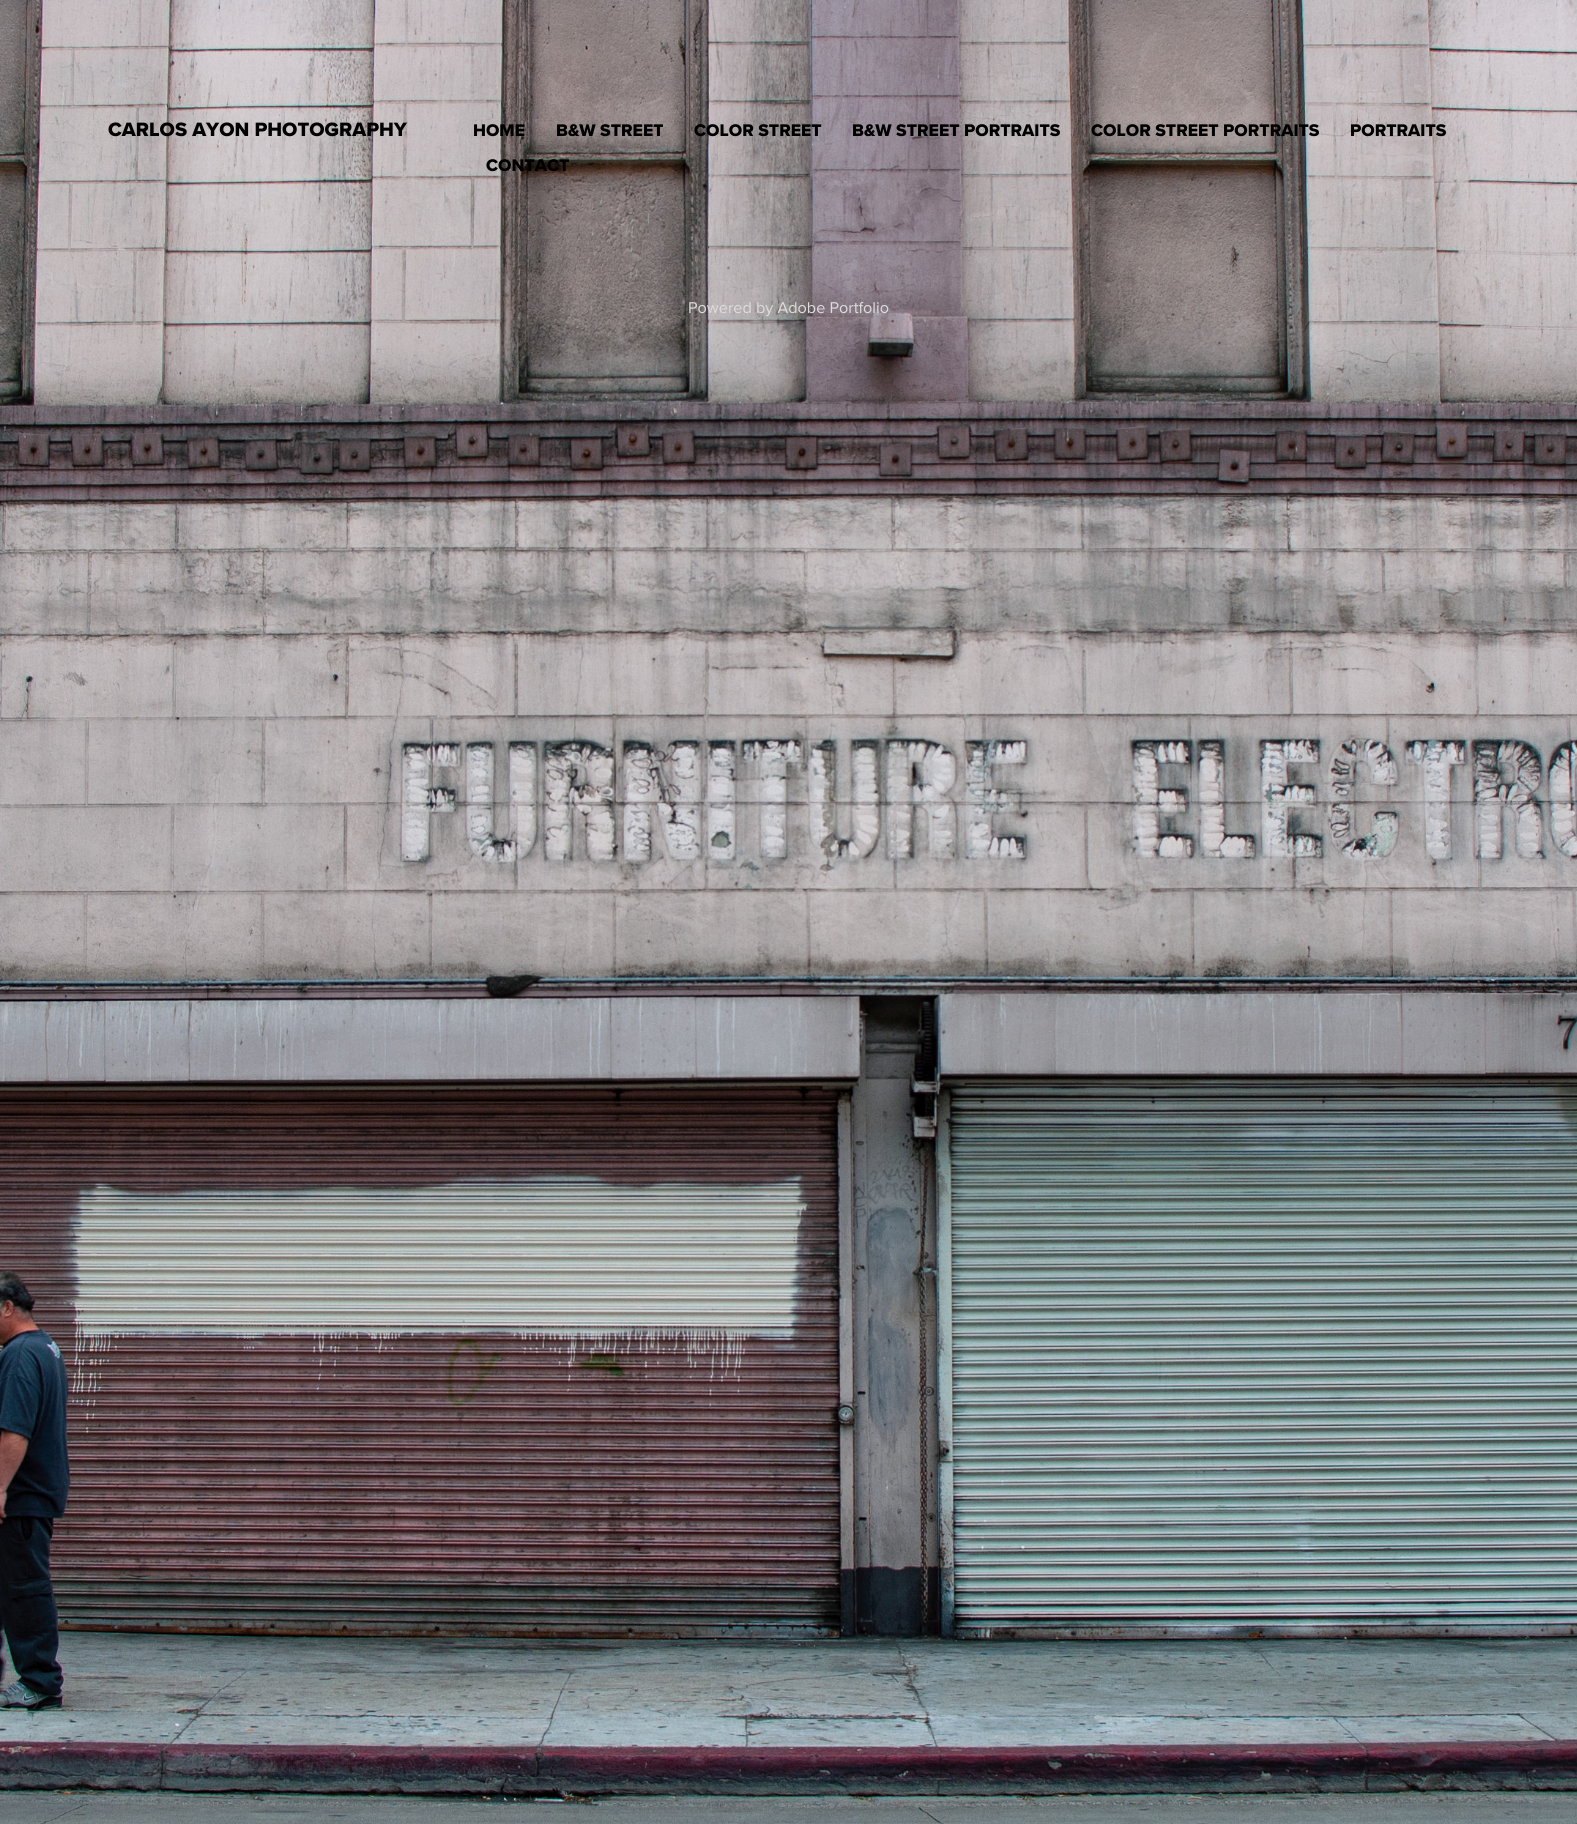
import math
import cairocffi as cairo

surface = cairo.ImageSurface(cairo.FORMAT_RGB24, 1577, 1824)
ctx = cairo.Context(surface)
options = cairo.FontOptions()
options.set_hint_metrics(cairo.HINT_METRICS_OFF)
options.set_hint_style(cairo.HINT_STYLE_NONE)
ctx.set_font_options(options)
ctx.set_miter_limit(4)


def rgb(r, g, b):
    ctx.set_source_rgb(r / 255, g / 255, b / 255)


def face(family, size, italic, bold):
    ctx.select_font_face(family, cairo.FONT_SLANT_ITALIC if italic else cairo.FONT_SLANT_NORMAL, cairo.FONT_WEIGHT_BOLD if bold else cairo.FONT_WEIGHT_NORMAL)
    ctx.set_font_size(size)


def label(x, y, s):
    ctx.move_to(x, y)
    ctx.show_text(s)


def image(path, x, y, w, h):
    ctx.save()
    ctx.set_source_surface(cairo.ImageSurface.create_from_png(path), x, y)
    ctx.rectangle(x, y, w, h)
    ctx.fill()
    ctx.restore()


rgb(255, 255, 255)
ctx.paint()
image('image0.png', 0, 0, 1577, 1824)
face('Proxima Nova ExtraBold', 20, 0, 0)
rgb(0, 0, 0)
label(108, 136, 'CARLOS AYON PHOTOGRAPHY')
face('Proxima Nova ExtraBold', 17.5, 0, 0)
label(473, 136, 'HOME')
label(556, 136, 'B&W STREET')
label(694, 136, 'COLOR STREET')
label(852, 136, 'B&W STREET PORTRAITS')
label(1091, 136, 'COLOR STREET PORTRAITS')
label(1350, 136, 'PORTRAITS')
label(486, 171, 'CONTACT')
face('Proxima Nova', 16.25, 0, 0)
rgb(221, 221, 221)
label(688, 313, 'Powered by Adobe Portfolio')
surface.write_to_png('render.png')
